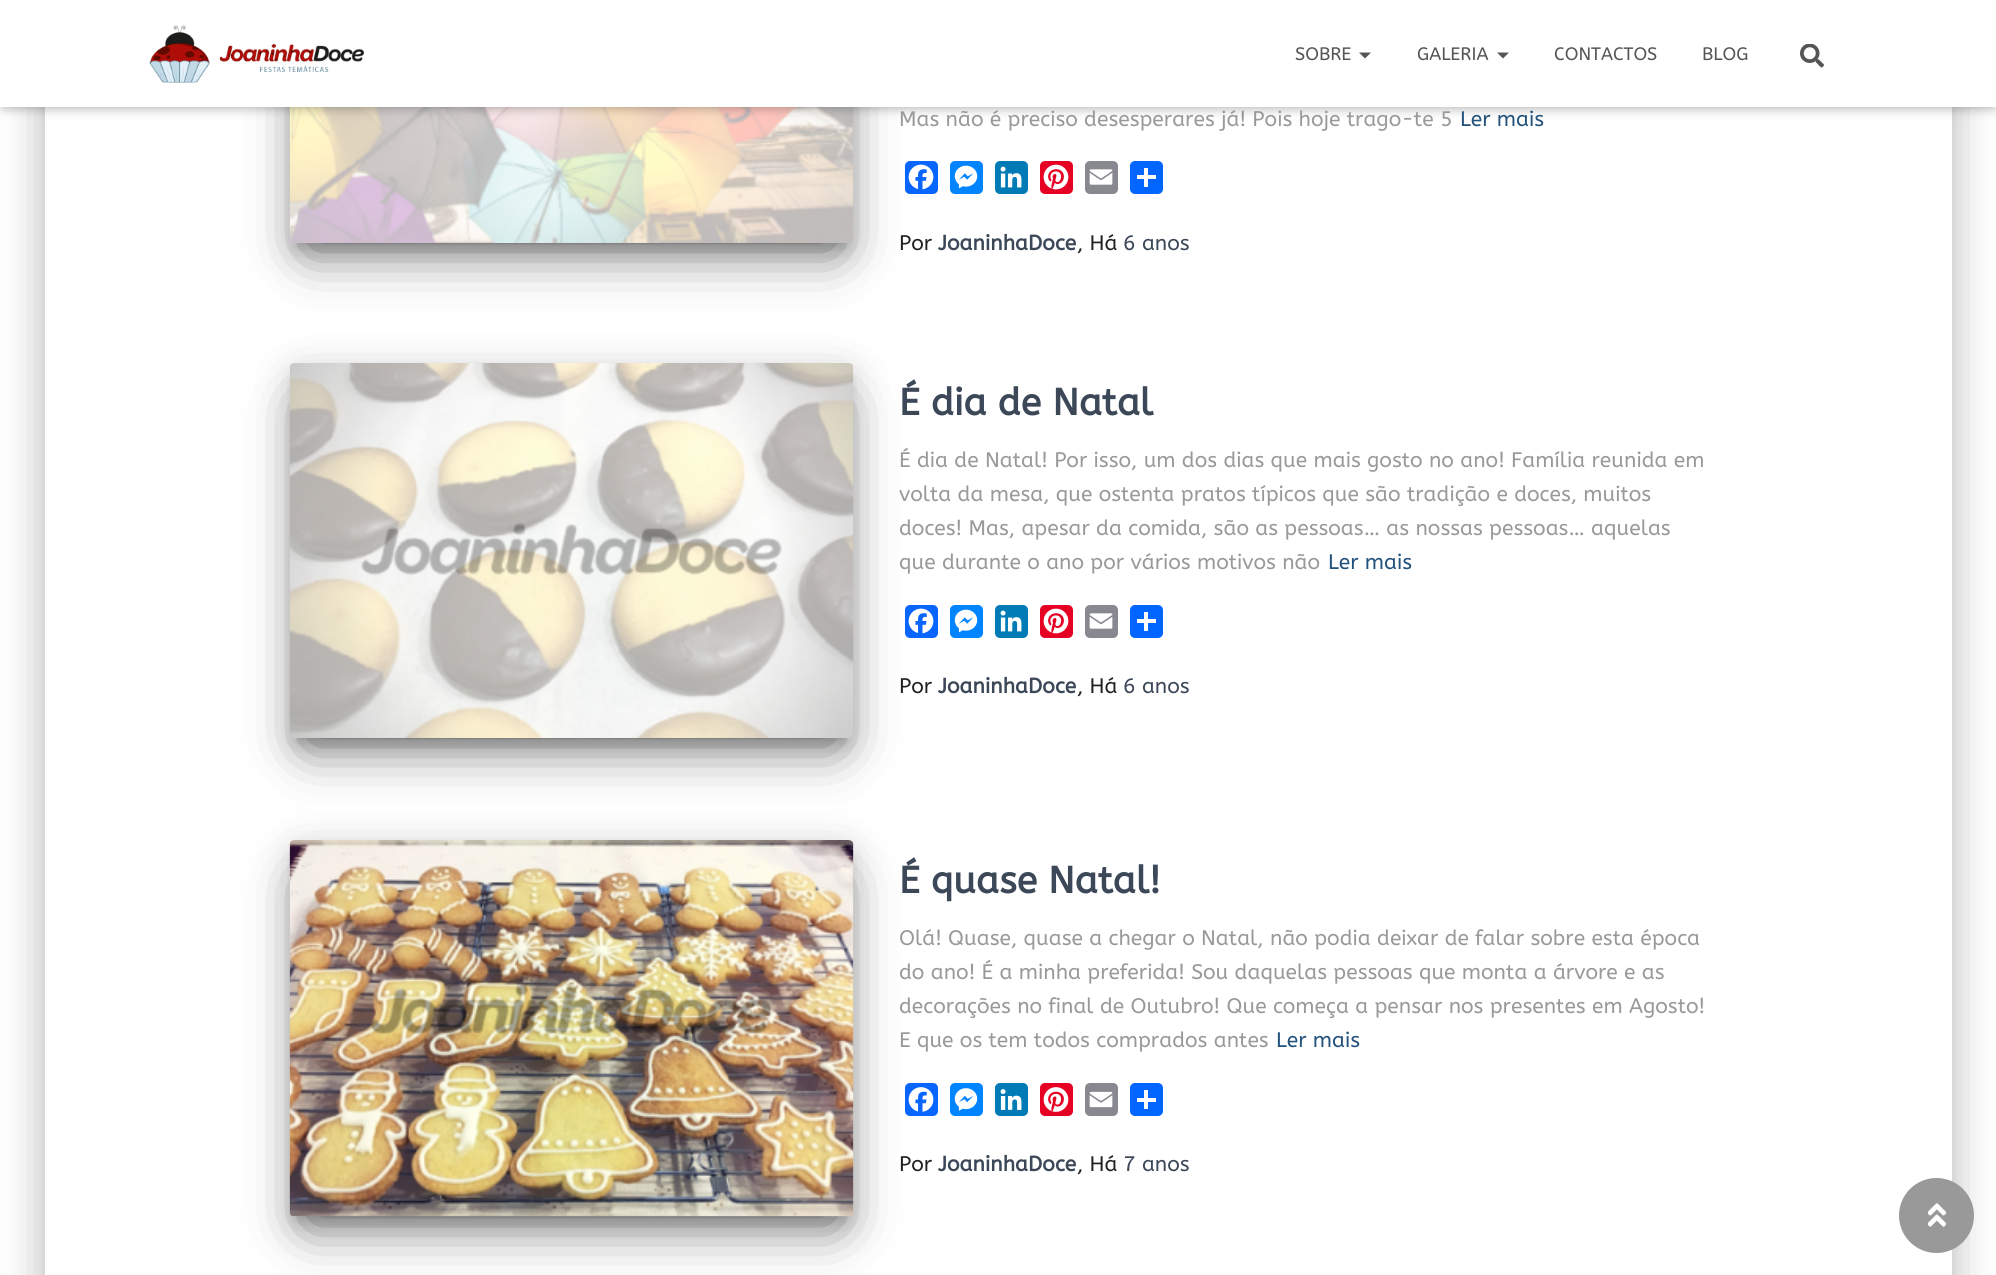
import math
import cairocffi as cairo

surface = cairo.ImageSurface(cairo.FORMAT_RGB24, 1996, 1275)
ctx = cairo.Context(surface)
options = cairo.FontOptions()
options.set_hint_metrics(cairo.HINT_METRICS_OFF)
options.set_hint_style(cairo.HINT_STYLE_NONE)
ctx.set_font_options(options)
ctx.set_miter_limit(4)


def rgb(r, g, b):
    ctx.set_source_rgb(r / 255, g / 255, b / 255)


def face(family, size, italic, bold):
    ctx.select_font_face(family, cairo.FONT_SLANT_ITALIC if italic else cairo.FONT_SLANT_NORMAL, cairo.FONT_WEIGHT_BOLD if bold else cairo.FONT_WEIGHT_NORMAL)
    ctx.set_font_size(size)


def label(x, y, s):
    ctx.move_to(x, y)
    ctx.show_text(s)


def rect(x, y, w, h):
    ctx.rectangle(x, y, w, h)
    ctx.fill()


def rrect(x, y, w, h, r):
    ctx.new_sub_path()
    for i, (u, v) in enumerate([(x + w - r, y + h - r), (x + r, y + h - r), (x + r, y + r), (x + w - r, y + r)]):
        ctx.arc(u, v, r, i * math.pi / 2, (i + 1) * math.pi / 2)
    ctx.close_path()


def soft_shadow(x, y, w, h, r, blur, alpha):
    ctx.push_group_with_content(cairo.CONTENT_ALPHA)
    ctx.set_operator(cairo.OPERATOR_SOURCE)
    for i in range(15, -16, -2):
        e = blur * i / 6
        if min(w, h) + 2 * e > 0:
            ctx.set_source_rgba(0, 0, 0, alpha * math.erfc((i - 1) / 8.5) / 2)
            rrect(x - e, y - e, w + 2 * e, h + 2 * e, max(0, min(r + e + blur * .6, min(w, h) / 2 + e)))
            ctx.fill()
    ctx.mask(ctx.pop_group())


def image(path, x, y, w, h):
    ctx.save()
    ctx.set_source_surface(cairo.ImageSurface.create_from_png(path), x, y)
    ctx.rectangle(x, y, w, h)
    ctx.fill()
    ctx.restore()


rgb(255, 255, 255)
ctx.paint()
rgb(0, 0, 0)
soft_shadow(53, -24, 1891, 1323, 1.5, 7.5, 0.2)
soft_shadow(38, -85, 1921, 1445, 17, 22.5, 0.12)
soft_shadow(42, -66, 1913, 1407, 12, 18, 0.14)
rgb(255, 255, 255)
rect(45, 107, 1907, 1168)
rgb(0, 0, 0)
soft_shadow(297, -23, 549, 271, 0, 7.5, 0.2)
soft_shadow(290, -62, 564, 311, 5, 19, 0.12)
soft_shadow(308, -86, 528, 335, 0, 28.5, 0.56)
image('image2.png', 289, 107, 565, 136)
soft_shadow(3, 9, 1991, 101, 0, 4, 0.1)
soft_shadow(0, 2, 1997, 106, 0, 7.5, 0.12)
soft_shadow(9, 11, 1979, 88, 0, 7.5, 0.42)
rgb(255, 255, 255)
rect(0, 0, 1996, 107)
image('image0.png', 149, 25, 215, 58)
face('ABeeZee', 18, 0, 0)
rgb(85, 85, 85)
label(1295, 60, 'SOBRE')
ctx.new_path()
ctx.move_to(1359, 52.5)
ctx.line_to(1371, 52.5)
ctx.line_to(1365, 58.5)
ctx.close_path()
ctx.fill()
label(1417, 60, 'GALERIA')
ctx.new_path()
ctx.move_to(1497, 52.5)
ctx.line_to(1509, 52.5)
ctx.line_to(1503, 58.5)
ctx.close_path()
ctx.fill()
label(1554, 60, 'CONTACTOS')
label(1702, 60, 'BLOG')
image('image1.png', 1800, 44, 24, 24)
face('ABeeZee', 21, 0, 0)
rgb(153, 153, 153)
label(899, 126, 'Mas não é preciso desesperares já! Pois hoje trago-te 5')
rgb(35, 82, 124)
label(1460, 126, 'Ler mais')
rgb(8, 102, 255)
rrect(905, 161, 33, 33, 5)
ctx.fill()
image('image3.png', 908, 164, 26, 26)
rgb(0, 132, 255)
rrect(950, 161, 33, 33, 5)
ctx.fill()
image('image4.png', 954, 165, 24, 24)
rgb(0, 123, 181)
rrect(995, 161, 33, 33, 5)
ctx.fill()
image('image5.png', 1000, 166, 22, 22)
rgb(230, 0, 35)
rrect(1040, 161, 33, 33, 5)
ctx.fill()
image('image6.png', 1043, 164, 26, 26)
rgb(136, 137, 144)
rrect(1085, 161, 33, 33, 5)
ctx.fill()
image('image7.png', 1089, 169, 24, 16)
rgb(1, 102, 255)
rrect(1130, 161, 33, 33, 5)
ctx.fill()
rgb(255, 255, 255)
rect(1144, 168, 4, 19)
rect(1137, 175, 19, 4)
rgb(33, 33, 33)
label(899, 250, 'Por')
face('ABeeZee', 21, 0, 1)
rgb(60, 72, 88)
label(938, 250, 'JoaninhaDoce')
face('ABeeZee', 21, 0, 0)
rgb(33, 33, 33)
label(1077, 250, ', Há')
rgb(60, 72, 88)
label(1123, 250, '6 anos')
rgb(0, 0, 0)
soft_shadow(297, 383, 549, 360, 0, 7.5, 0.2)
soft_shadow(290, 369, 564, 375, 5, 19, 0.12)
soft_shadow(308, 405, 528, 339, 0, 28.5, 0.56)
image('image8.png', 289, 363, 565, 375)
face('ABeeZee', 37.5, 0, 1)
rgb(60, 72, 88)
label(899, 415, 'É dia de Natal')
face('ABeeZee', 21, 0, 0)
rgb(153, 153, 153)
label(899, 467, 'É dia de Natal! Por isso, um dos dias que mais gosto no ano! Família reunida em')
label(899, 501, 'volta da mesa, que ostenta pratos típicos que são tradição e doces, muitos')
label(899, 535, 'doces! Mas, apesar da comida, são as pessoas… as nossas pessoas… aquelas')
label(899, 569, 'que durante o ano por vários motivos não')
rgb(35, 82, 124)
label(1328, 569, 'Ler mais')
rgb(8, 102, 255)
rrect(905, 605, 33, 33, 5)
ctx.fill()
image('image3.png', 908, 608, 26, 26)
rgb(0, 132, 255)
rrect(950, 605, 33, 33, 5)
ctx.fill()
image('image4.png', 954, 609, 24, 24)
rgb(0, 123, 181)
rrect(995, 605, 33, 33, 5)
ctx.fill()
image('image5.png', 1000, 610, 22, 22)
rgb(230, 0, 35)
rrect(1040, 605, 33, 33, 5)
ctx.fill()
image('image6.png', 1043, 608, 26, 26)
rgb(136, 137, 144)
rrect(1085, 605, 33, 33, 5)
ctx.fill()
image('image7.png', 1089, 613, 24, 16)
rgb(1, 102, 255)
rrect(1130, 605, 33, 33, 5)
ctx.fill()
rgb(255, 255, 255)
rect(1144, 612, 4, 19)
rect(1137, 619, 19, 4)
rgb(33, 33, 33)
label(899, 693, 'Por')
face('ABeeZee', 21, 0, 1)
rgb(60, 72, 88)
label(938, 693, 'JoaninhaDoce')
face('ABeeZee', 21, 0, 0)
rgb(33, 33, 33)
label(1077, 693, ', Há')
rgb(60, 72, 88)
label(1123, 693, '6 anos')
rgb(0, 0, 0)
soft_shadow(297, 860, 549, 361, 0, 7.5, 0.2)
soft_shadow(290, 846, 564, 377, 5, 19, 0.12)
soft_shadow(308, 882, 528, 341, 0, 28.5, 0.56)
image('image9.png', 289, 840, 565, 377)
face('ABeeZee', 37.5, 0, 1)
rgb(60, 72, 88)
label(899, 893, 'É quase Natal!')
face('ABeeZee', 21, 0, 0)
rgb(153, 153, 153)
label(899, 945, 'Olá! Quase, quase a chegar o Natal, não podia deixar de falar sobre esta época')
label(899, 979, 'do ano! É a minha preferida! Sou daquelas pessoas que monta a árvore e as')
label(899, 1013, 'decorações no final de Outubro! Que começa a pensar nos presentes em Agosto!')
label(899, 1047, 'E que os tem todos comprados antes')
rgb(35, 82, 124)
label(1276, 1047, 'Ler mais')
rgb(8, 102, 255)
rrect(905, 1083, 33, 33, 5)
ctx.fill()
image('image10.png', 908, 1087, 26, 25)
rgb(0, 132, 255)
rrect(950, 1083, 33, 33, 5)
ctx.fill()
image('image11.png', 954, 1088, 24, 23)
rgb(0, 123, 181)
rrect(995, 1083, 33, 33, 5)
ctx.fill()
image('image12.png', 1000, 1089, 22, 21)
rgb(230, 0, 35)
rrect(1040, 1083, 33, 33, 5)
ctx.fill()
image('image13.png', 1043, 1087, 26, 25)
rgb(136, 137, 144)
rrect(1085, 1083, 33, 33, 5)
ctx.fill()
image('image14.png', 1089, 1091, 24, 17)
rgb(1, 102, 255)
rrect(1130, 1083, 33, 33, 5)
ctx.fill()
rgb(255, 255, 255)
rect(1144, 1090, 4, 19)
rect(1137, 1098, 19, 4)
rgb(33, 33, 33)
label(899, 1171, 'Por')
face('ABeeZee', 21, 0, 1)
rgb(60, 72, 88)
label(938, 1171, 'JoaninhaDoce')
face('ABeeZee', 21, 0, 0)
rgb(33, 33, 33)
label(1077, 1171, ', Há')
rgb(60, 72, 88)
label(1123, 1171, '7 anos')
rgb(153, 153, 153)
ctx.new_path()
ctx.arc(1936.5, 1215.5, 37.5, 0, 2 * math.pi)
ctx.fill()
image('image15.png', 1928, 1203, 18, 24)
surface.write_to_png('render.png')
